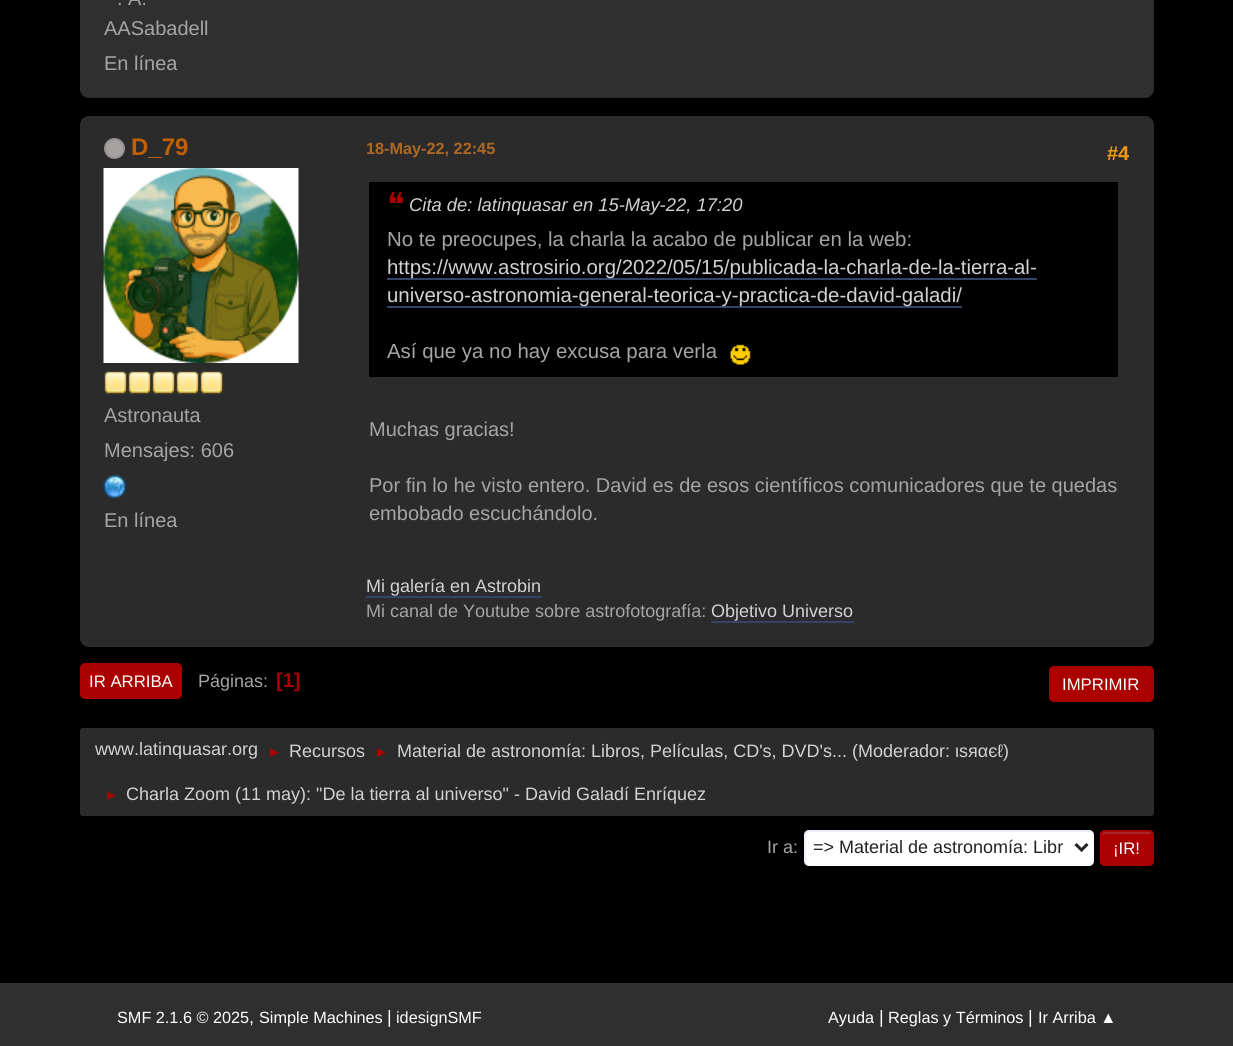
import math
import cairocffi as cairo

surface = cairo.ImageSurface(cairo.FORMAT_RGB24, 1233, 1046)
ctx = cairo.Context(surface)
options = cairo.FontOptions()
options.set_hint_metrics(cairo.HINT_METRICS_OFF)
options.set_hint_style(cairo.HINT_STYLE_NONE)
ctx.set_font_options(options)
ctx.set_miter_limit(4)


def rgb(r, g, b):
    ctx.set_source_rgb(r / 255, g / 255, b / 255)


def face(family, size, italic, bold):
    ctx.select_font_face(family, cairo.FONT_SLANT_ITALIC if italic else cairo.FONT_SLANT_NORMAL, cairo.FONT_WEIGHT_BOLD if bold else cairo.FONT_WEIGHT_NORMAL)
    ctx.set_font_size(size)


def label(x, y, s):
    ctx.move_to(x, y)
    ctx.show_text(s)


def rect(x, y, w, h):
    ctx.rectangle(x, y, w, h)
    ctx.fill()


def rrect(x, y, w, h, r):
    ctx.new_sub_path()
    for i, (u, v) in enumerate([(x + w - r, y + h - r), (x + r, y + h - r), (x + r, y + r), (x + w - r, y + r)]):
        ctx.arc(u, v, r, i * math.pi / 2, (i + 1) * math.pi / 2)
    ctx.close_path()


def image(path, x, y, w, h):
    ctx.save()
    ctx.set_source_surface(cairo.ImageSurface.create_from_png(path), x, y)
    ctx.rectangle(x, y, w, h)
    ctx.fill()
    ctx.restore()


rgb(0, 0, 0)
ctx.paint()
rgb(47, 47, 47)
rrect(80, -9, 1074, 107, 9)
ctx.fill()
face('Liberation Sans', 20, 0, 0)
rgb(165, 165, 165)
label(117, 5, '. A.')
label(104, 35, 'AASabadell')
label(104, 70, 'En línea')
rgb(43, 43, 43)
rrect(80, 116, 1074, 531, 9)
ctx.fill()
rgb(167, 162, 162)
ctx.arc(114.5, 148.5, 9.5, 0, 2 * math.pi)
ctx.fill_preserve()
rgb(150, 146, 146)
ctx.stroke()
face('Liberation Sans', 24, 0, 1)
rgb(192, 96, 2)
label(131, 155, 'D_79')
image('image0.png', 103, 168, 196, 195)
image('image1.png', 104, 371, 23, 23)
image('image1.png', 128, 371, 23, 23)
image('image1.png', 152, 371, 23, 23)
image('image1.png', 176, 371, 23, 23)
image('image1.png', 200, 371, 23, 23)
face('Liberation Sans', 20, 0, 0)
rgb(165, 165, 165)
label(104, 422, 'Astronauta')
label(104, 457, 'Mensajes: 606')
image('image2.png', 103, 475, 24, 24)
label(104, 527, 'En línea')
face('Liberation Sans', 16.25, 0, 1)
rgb(173, 104, 37)
label(366, 154, '18-May-22, 22:45')
face('Liberation Sans', 20, 0, 1)
rgb(243, 156, 18)
label(1107, 160, '#4')
rgb(0, 0, 0)
rect(372, 184, 743, 191)
rect(369, 182, 749, 2)
rect(1115, 182, 3, 195)
rect(369, 375, 749, 2)
rect(369, 182, 3, 195)
face('DejaVu Sans', 33, 0, 0)
rgb(170, 0, 0)
label(387, 216, '❝')
face('Liberation Sans', 18.4, 1, 0)
rgb(210, 210, 210)
label(409, 211, 'Cita de: latinquasar en 15-May-22, 17:20')
face('Liberation Sans', 20.4, 0, 0)
rgb(165, 165, 165)
label(387, 246, 'No te preocupes, la charla la acabo de publicar en la web:')
rgb(51, 68, 102)
rect(387, 278, 650, 2)
rgb(210, 210, 210)
label(387, 274, 'https://www.astrosirio.org/2022/05/15/publicada-la-charla-de-la-tierra-al-')
rgb(51, 68, 102)
rect(387, 306, 575, 2)
rgb(210, 210, 210)
label(387, 302, 'universo-astronomia-general-teorica-y-practica-de-david-galadi/')
rgb(165, 165, 165)
label(387, 358, 'Así que ya no hay excusa para verla')
image('image3.png', 730, 344, 21, 21)
face('Liberation Sans', 20, 0, 0)
label(369, 436, 'Muchas gracias!')
label(369, 492, 'Por fin lo he visto entero. David es de esos científicos comunicadores que te quedas')
label(369, 520, 'embobado escuchándolo.')
face('Liberation Sans', 18, 0, 0)
rgb(210, 210, 210)
label(366, 592, 'Mi galería en Astrobin')
rgb(51, 68, 102)
rect(366, 596, 176, 2)
rgb(165, 165, 165)
label(366, 617, 'Mi canal de Youtube sobre astrofotografía:')
rgb(210, 210, 210)
label(711, 617, 'Objetivo Universo')
rgb(51, 68, 102)
rect(711, 621, 143, 2)
rgb(170, 0, 0)
rrect(81, 664, 100, 34, 4)
ctx.fill_preserve()
ctx.stroke()
face('Liberation Sans', 16.75, 0, 0)
rgb(255, 255, 255)
label(89, 687, 'IR ARRIBA')
face('Liberation Sans', 18, 0, 0)
rgb(165, 165, 165)
label(198, 687, 'Páginas:')
face('Liberation Sans', 20, 0, 1)
rgb(170, 0, 0)
label(276, 687, '[1]')
rrect(1050, 667, 103, 34, 4)
ctx.fill_preserve()
ctx.stroke()
face('Liberation Sans', 16.75, 0, 0)
rgb(255, 255, 255)
label(1062, 690, 'IMPRIMIR')
rgb(43, 43, 43)
rrect(80, 728, 1074, 88, 3)
ctx.fill()
face('Liberation Sans', 18, 0, 0)
rgb(210, 210, 210)
label(95, 755, 'www.latinquasar.org')
face('Liberation Sans', 15, 0, 0)
rgb(170, 0, 0)
label(267, 757, '►')
face('Liberation Sans', 18, 0, 0)
rgb(210, 210, 210)
label(289, 757, 'Recursos')
face('Liberation Sans', 15, 0, 0)
rgb(170, 0, 0)
label(374, 757, '►')
face('Liberation Sans', 18, 0, 0)
rgb(210, 210, 210)
label(397, 757, 'Material de astronomía: Libros, Películas, CD\'s, DVD\'s...')
label(852, 757, '(Moderador:')
label(955, 757, 'ιѕяαєℓ')
label(1003, 757, ')')
face('Liberation Sans', 15, 0, 0)
rgb(170, 0, 0)
label(104, 800, '►')
face('Liberation Sans', 18, 0, 0)
rgb(210, 210, 210)
label(126, 800, 'Charla Zoom (11 may): "De la tierra al universo" - David Galadí Enríquez')
rgb(165, 165, 165)
label(767, 853, 'Ir a:')
rgb(255, 255, 255)
rrect(804, 830, 290, 36, 5)
ctx.fill()
ctx.set_source_rgba(0.627, 0.733, 0.867, 0.2)
ctx.new_path()
ctx.move_to(810, 832)
ctx.line_to(1090, 832)
ctx.curve_to(1092, 832, 1093, 833, 1094, 834)
ctx.curve_to(1094, 832, 1091, 830, 1089, 830)
ctx.line_to(809, 830)
ctx.curve_to(806, 830, 804, 832, 804, 835)
ctx.line_to(804, 861)
ctx.curve_to(804, 863, 805, 864, 806, 865)
ctx.line_to(806, 850)
ctx.curve_to(806, 848, 804, 832, 810, 832)
ctx.close_path()
ctx.fill()
ctx.new_path()
ctx.move_to(1075.5, 844)
ctx.line_to(1081.5, 850)
ctx.line_to(1087.5, 844)
rgb(34, 34, 34)
ctx.set_line_width(3)
ctx.stroke()
label(813, 853, '=> Material de astronomía: Libr')
rgb(170, 0, 0)
rrect(1100, 830, 54, 36, 5)
ctx.fill()
rgb(168, 37, 44)
ctx.new_path()
ctx.move_to(1106, 834)
ctx.line_to(1152, 834)
ctx.curve_to(1152, 832, 1151, 831, 1149, 831)
ctx.line_to(1104, 831)
ctx.curve_to(1102, 831, 1101, 832, 1101, 834)
ctx.line_to(1101, 861)
ctx.curve_to(1101, 862, 1101, 863, 1102, 863)
ctx.line_to(1102, 837)
ctx.curve_to(1102, 835, 1104, 834, 1106, 834)
ctx.close_path()
ctx.fill()
rrect(1101, 831, 52, 34, 4)
rgb(170, 0, 0)
ctx.set_line_width(2)
ctx.stroke()
face('Liberation Sans', 16.75, 0, 0)
rgb(255, 255, 255)
label(1113, 854, '¡IR!')
rgb(47, 47, 47)
rect(0, 983, 1233, 63)
face('Liberation Sans', 16.25, 0, 0)
rgb(255, 255, 255)
label(117, 1023, 'SMF 2.1.6 © 2025')
face('Liberation Sans', 18, 0, 0)
label(249, 1023, ',')
face('Liberation Sans', 16.25, 0, 0)
label(259, 1023, 'Simple Machines')
face('Liberation Sans', 18, 0, 0)
label(387, 1023, '|')
face('Liberation Sans', 16.25, 0, 0)
label(396, 1023, 'idesignSMF')
label(828, 1023, 'Ayuda')
face('Liberation Sans', 18, 0, 0)
label(879, 1023, '|')
face('Liberation Sans', 16.25, 0, 0)
label(888, 1023, 'Reglas y Términos')
face('Liberation Sans', 18, 0, 0)
label(1028, 1023, '|')
face('Liberation Sans', 16.25, 0, 0)
label(1038, 1023, 'Ir Arriba ▲')
surface.write_to_png('render.png')
